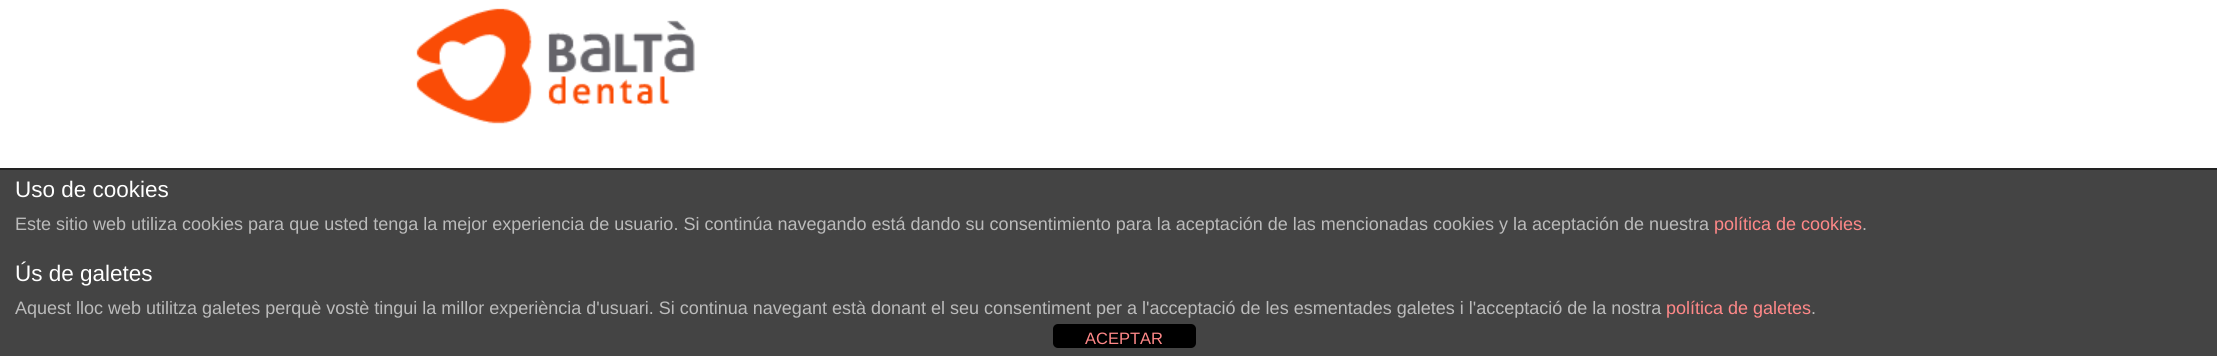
import math
import cairocffi as cairo

surface = cairo.ImageSurface(cairo.FORMAT_RGB24, 2217, 356)
ctx = cairo.Context(surface)
options = cairo.FontOptions()
options.set_hint_metrics(cairo.HINT_METRICS_OFF)
options.set_hint_style(cairo.HINT_STYLE_NONE)
ctx.set_font_options(options)
ctx.set_miter_limit(4)


def rgb(r, g, b):
    ctx.set_source_rgb(r / 255, g / 255, b / 255)


def face(family, size, italic, bold):
    ctx.select_font_face(family, cairo.FONT_SLANT_ITALIC if italic else cairo.FONT_SLANT_NORMAL, cairo.FONT_WEIGHT_BOLD if bold else cairo.FONT_WEIGHT_NORMAL)
    ctx.set_font_size(size)


def label(x, y, s):
    ctx.move_to(x, y)
    ctx.show_text(s)


def rect(x, y, w, h):
    ctx.rectangle(x, y, w, h)
    ctx.fill()


def rrect(x, y, w, h, r):
    ctx.new_sub_path()
    for i, (u, v) in enumerate([(x + w - r, y + h - r), (x + r, y + h - r), (x + r, y + r), (x + w - r, y + r)]):
        ctx.arc(u, v, r, i * math.pi / 2, (i + 1) * math.pi / 2)
    ctx.close_path()


def image(path, x, y, w, h):
    ctx.save()
    ctx.set_source_surface(cairo.ImageSurface.create_from_png(path), x, y)
    ctx.rectangle(x, y, w, h)
    ctx.fill()
    ctx.restore()


rgb(255, 255, 255)
ctx.paint()
image('image0.png', 416, 8, 279, 116)
rgb(68, 68, 68)
rect(0, 170, 2217, 186)
rgb(34, 34, 34)
rect(0, 168, 2217, 2)
face('Liberation Sans', 22.5, 0, 0)
rgb(255, 255, 255)
label(15, 197, 'Uso de cookies')
face('Liberation Sans', 18, 0, 0)
rgb(187, 187, 187)
label(15, 230, 'Este sitio web utiliza cookies para que usted tenga la mejor experiencia de usuario. Si continúa navegando está dando su consentimiento para la aceptación de las mencionadas cookies y la aceptación de nuestra')
rgb(255, 136, 136)
label(1714, 230, 'política de cookies')
rgb(187, 187, 187)
label(1862, 230, '.')
face('Liberation Sans', 22.5, 0, 0)
rgb(255, 255, 255)
label(15, 281, 'Ús de galetes')
face('Liberation Sans', 18, 0, 0)
rgb(187, 187, 187)
label(15, 314, 'Aquest lloc web utilitza galetes perquè vostè tingui la millor experiència d\'usuari. Si continua navegant està donant el seu consentiment per a l\'acceptació de les esmentades galetes i l\'acceptació de la nostra')
rgb(255, 136, 136)
label(1666, 314, 'política de galetes')
rgb(187, 187, 187)
label(1811, 314, '.')
rgb(0, 0, 0)
rrect(1053, 324, 143, 24, 5)
ctx.fill()
face('Liberation Sans', 16.5, 0, 0)
rgb(255, 136, 136)
label(1085, 344, 'ACEPTAR')
surface.write_to_png('render.png')
